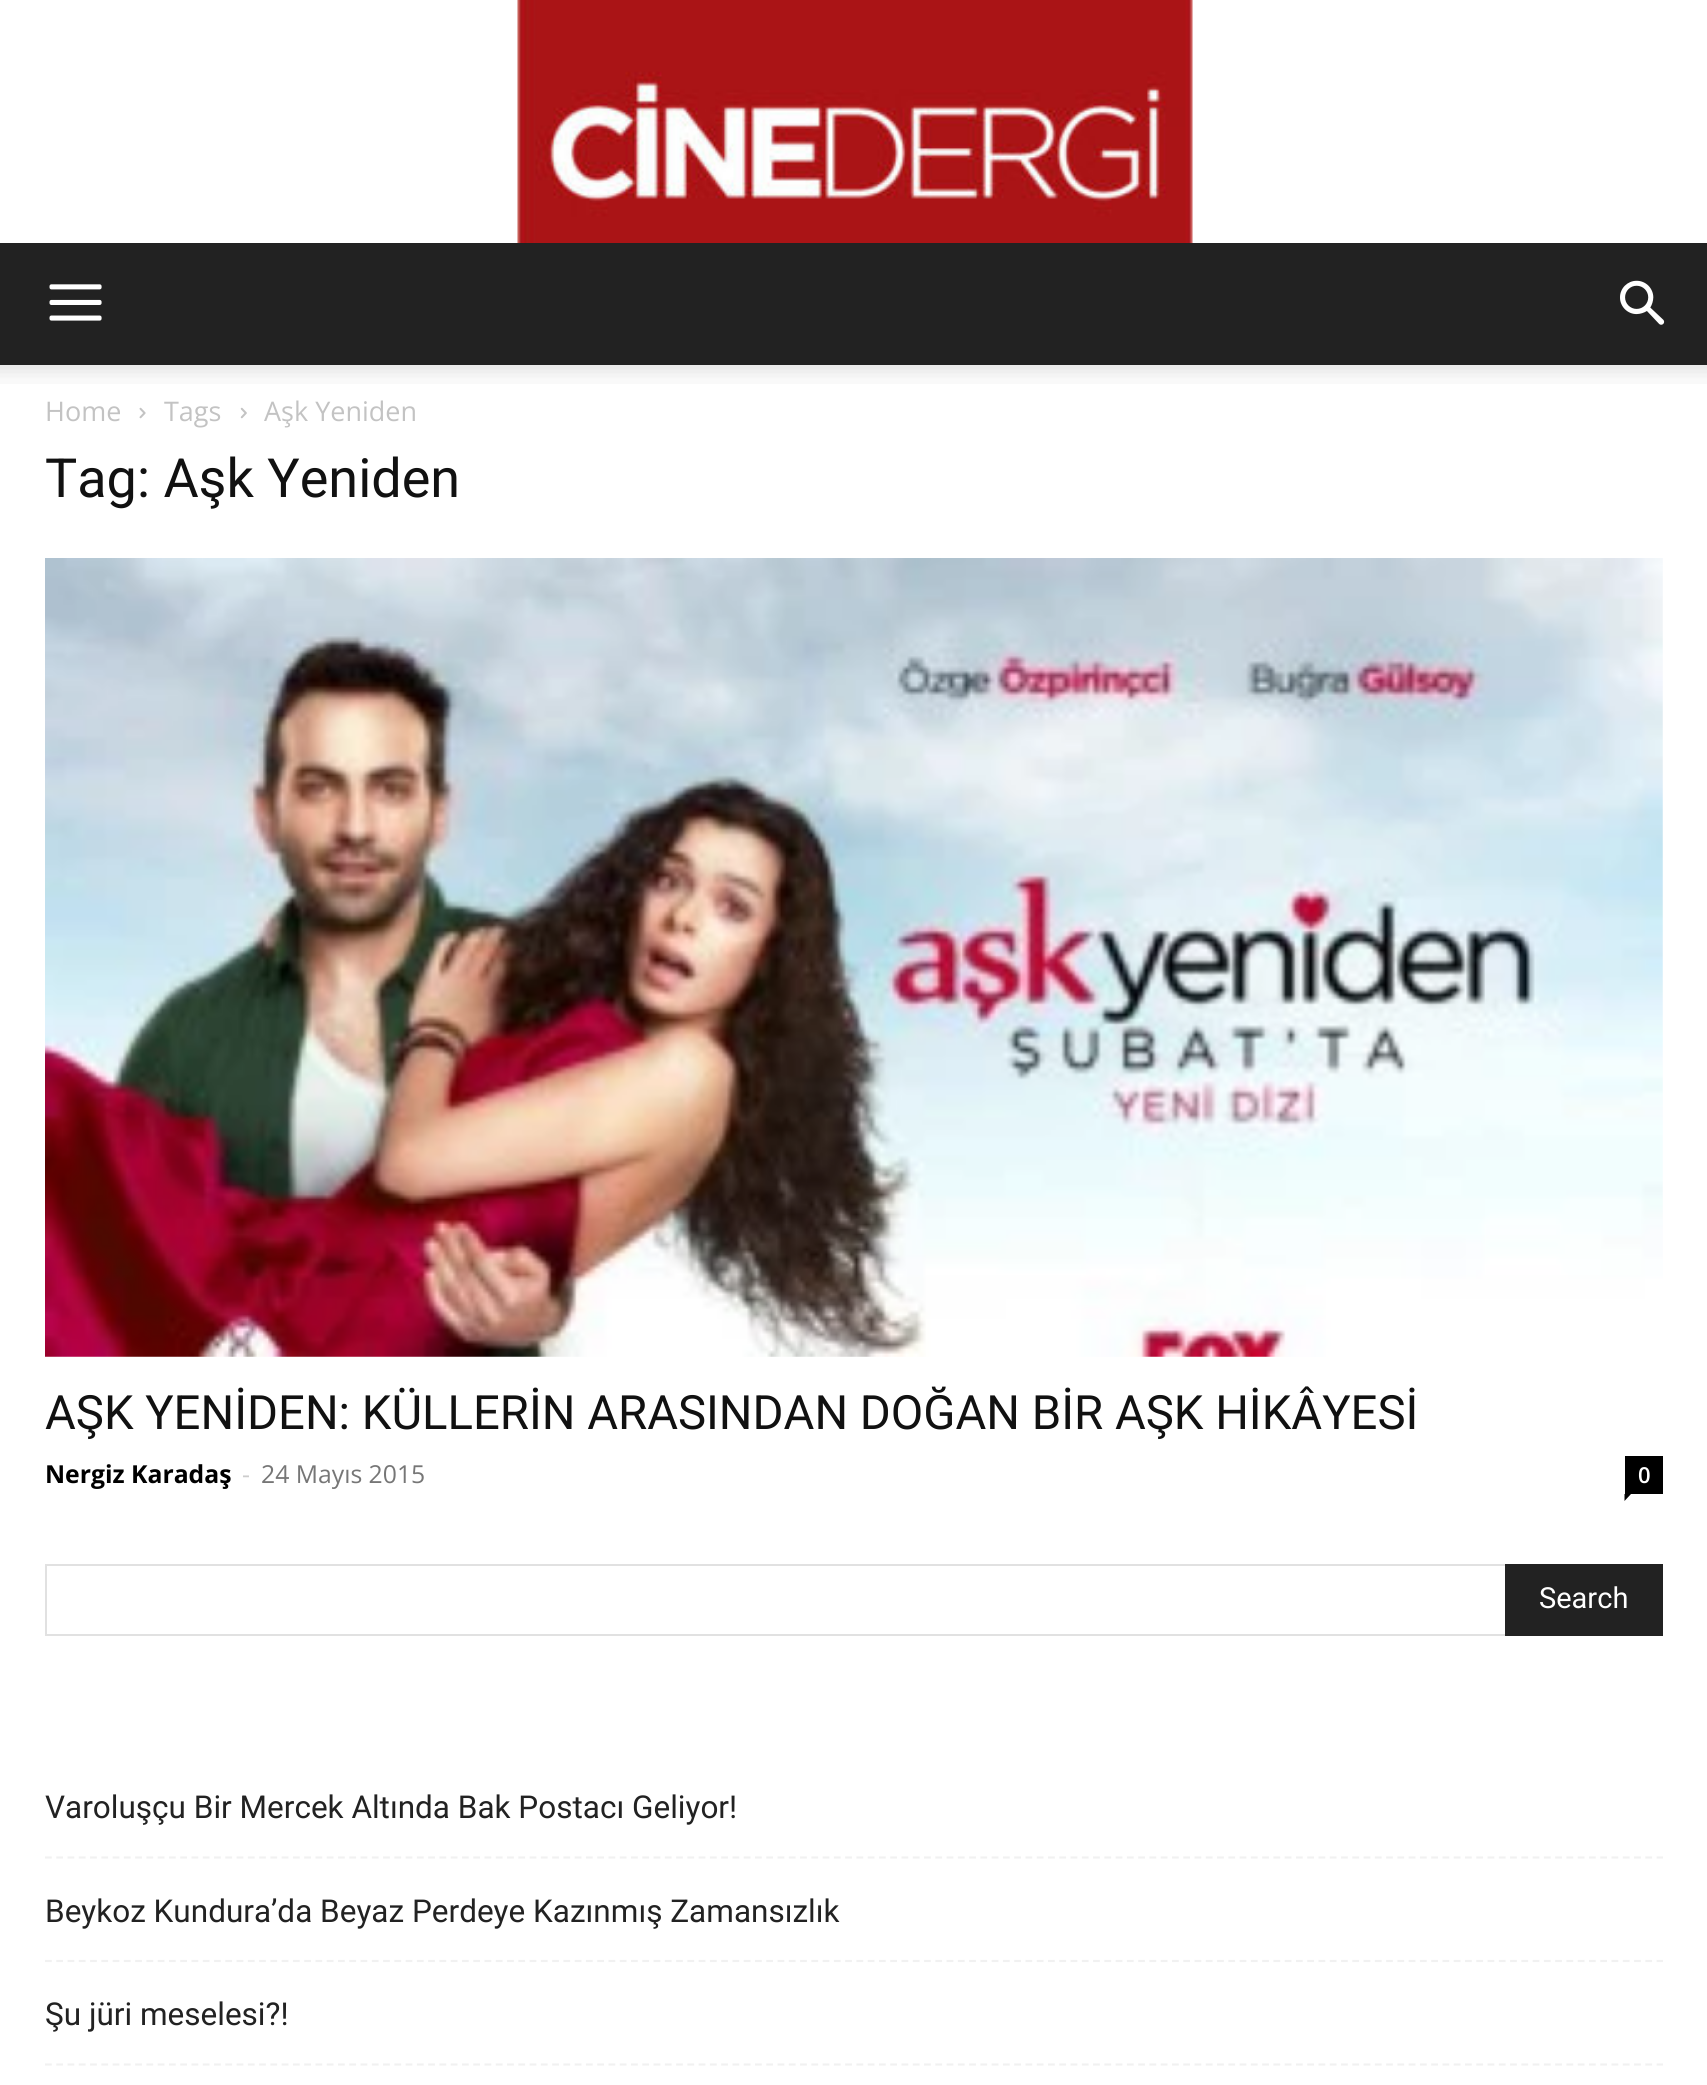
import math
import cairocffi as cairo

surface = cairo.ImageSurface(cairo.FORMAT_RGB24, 1707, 2085)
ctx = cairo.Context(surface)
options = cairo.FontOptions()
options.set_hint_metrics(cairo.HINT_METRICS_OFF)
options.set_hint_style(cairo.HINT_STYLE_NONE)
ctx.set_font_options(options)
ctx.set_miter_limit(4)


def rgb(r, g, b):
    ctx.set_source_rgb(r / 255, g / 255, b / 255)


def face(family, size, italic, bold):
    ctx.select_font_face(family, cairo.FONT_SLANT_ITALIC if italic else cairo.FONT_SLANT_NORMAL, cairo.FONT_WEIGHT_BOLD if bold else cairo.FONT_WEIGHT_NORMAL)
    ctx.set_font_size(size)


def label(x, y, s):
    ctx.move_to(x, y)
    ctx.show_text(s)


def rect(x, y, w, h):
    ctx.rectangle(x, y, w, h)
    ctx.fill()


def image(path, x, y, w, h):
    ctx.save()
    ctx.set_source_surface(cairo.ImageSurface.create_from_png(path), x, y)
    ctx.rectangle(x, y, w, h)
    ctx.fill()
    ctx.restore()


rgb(255, 255, 255)
ctx.paint()
image('image0.png', 517, 0, 676, 243)
rgb(34, 34, 34)
rect(0, 243, 1707, 122)
image('image1.png', 49, 284, 53, 37)
image('image2.png', 1620, 280, 45, 45)
image('image3.png', 0, 365, 1707, 19)
face('Open Sans', 27, 0, 0)
rgb(195, 195, 195)
label(45, 421, 'Home')
image('image4.png', 139, 407, 7, 12)
label(164, 421, 'Tags')
image('image5.png', 240, 407, 7, 12)
label(264, 421, 'Aşk Yeniden')
face('Roboto', 54, 0, 0)
rgb(17, 17, 17)
label(45, 497, 'Tag: Aşk Yeniden')
image('image6.png', 45, 558, 1618, 799)
face('Roboto', 47.25, 0, 0)
label(45, 1429, 'AŞK YENİDEN: KÜLLERİN ARASINDAN DOĞAN BİR AŞK HİKÂYESİ')
face('Open Sans', 24.75, 0, 1)
rgb(0, 0, 0)
label(45, 1483, 'Nergiz Karadaş')
face('Open Sans', 24.75, 0, 0)
rgb(204, 204, 204)
label(242, 1483, '-')
rgb(118, 118, 118)
label(261, 1483, '24 Mayıs 2015')
rgb(0, 0, 0)
rect(1625, 1456, 38, 38)
face('Open Sans SemiBold', 22, 0, 0)
rgb(255, 255, 255)
label(1638, 1483, '0')
rgb(0, 0, 0)
ctx.new_path()
ctx.move_to(1624.5, 1494)
ctx.line_to(1631, 1494)
ctx.line_to(1624.5, 1501)
ctx.close_path()
ctx.fill()
rgb(225, 225, 225)
rect(45, 1564, 1460, 2)
rect(45, 1634, 1460, 2)
rect(45, 1564, 2, 72)
rgb(34, 34, 34)
rect(1505, 1564, 158, 72)
face('Roboto', 29, 0, 0)
rgb(255, 255, 255)
label(1539, 1608, 'Search')
ctx.new_path()
ctx.move_to(45, 1857.5)
ctx.line_to(1663, 1857.5)
rgb(241, 241, 241)
ctx.set_line_width(2.2)
ctx.set_dash([6.75, 4.52])
ctx.stroke()
face('Roboto', 31.5, 0, 0)
rgb(34, 34, 34)
label(45, 1818, 'Varoluşçu Bir Mercek Altında Bak Postacı Geliyor!')
ctx.new_path()
ctx.move_to(45, 1961)
ctx.line_to(1663, 1961)
rgb(241, 241, 241)
ctx.stroke()
rgb(34, 34, 34)
label(45, 1922, 'Beykoz Kundura’da Beyaz Perdeye Kazınmış Zamansızlık')
ctx.new_path()
ctx.move_to(45, 2064.5)
ctx.line_to(1663, 2064.5)
rgb(241, 241, 241)
ctx.stroke()
rgb(34, 34, 34)
label(45, 2025, 'Şu jüri meselesi?!')
surface.write_to_png('render.png')
